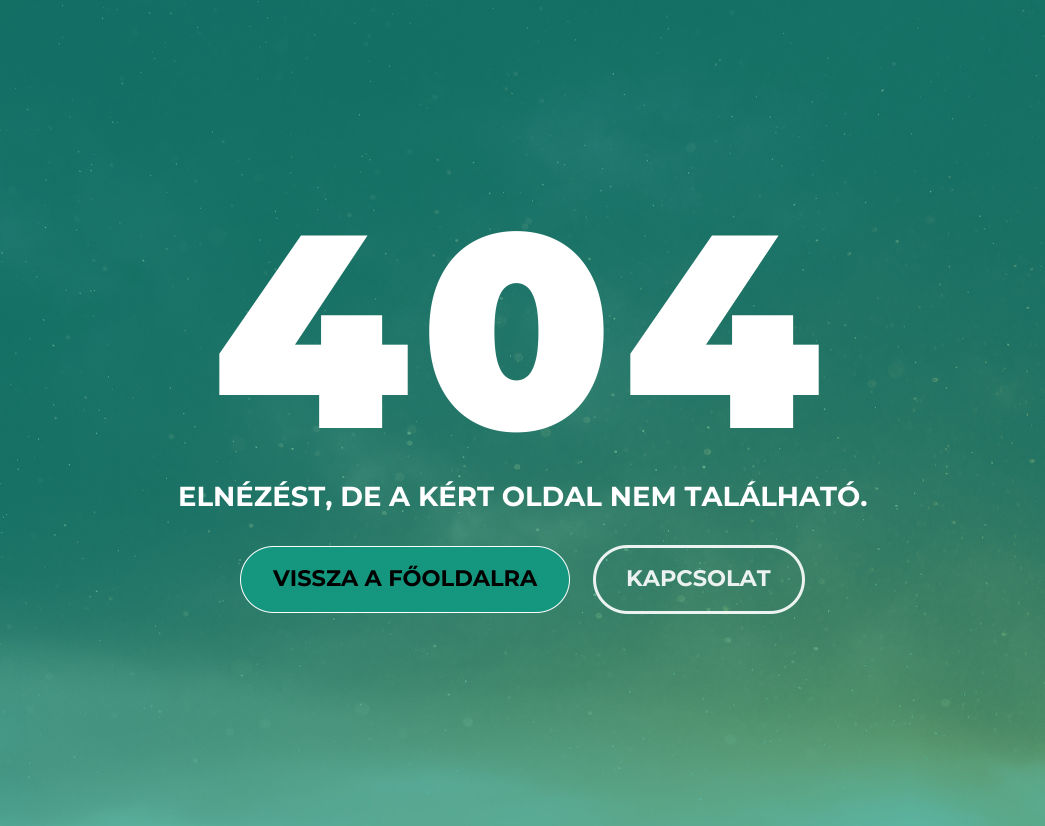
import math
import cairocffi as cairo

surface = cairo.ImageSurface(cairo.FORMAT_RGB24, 1045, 826)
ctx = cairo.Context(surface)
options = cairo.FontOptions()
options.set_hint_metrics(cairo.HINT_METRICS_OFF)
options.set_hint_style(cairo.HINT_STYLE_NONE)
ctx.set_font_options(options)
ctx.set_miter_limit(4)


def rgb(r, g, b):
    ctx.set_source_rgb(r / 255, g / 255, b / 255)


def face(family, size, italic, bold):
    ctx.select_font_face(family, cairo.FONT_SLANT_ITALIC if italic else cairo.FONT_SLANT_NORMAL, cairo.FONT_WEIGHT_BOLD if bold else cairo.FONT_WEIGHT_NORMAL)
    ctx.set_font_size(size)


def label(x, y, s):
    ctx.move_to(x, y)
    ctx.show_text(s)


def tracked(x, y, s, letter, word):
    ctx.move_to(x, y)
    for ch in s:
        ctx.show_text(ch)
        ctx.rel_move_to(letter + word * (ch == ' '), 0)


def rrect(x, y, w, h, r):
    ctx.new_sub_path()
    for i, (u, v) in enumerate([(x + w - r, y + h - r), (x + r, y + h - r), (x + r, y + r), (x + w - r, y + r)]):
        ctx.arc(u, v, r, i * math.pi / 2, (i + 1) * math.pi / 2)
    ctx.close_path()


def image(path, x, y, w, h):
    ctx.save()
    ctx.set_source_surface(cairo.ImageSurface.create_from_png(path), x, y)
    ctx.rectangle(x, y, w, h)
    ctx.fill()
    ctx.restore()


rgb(255, 255, 255)
ctx.paint()
image('image0.png', 0, 0, 1045, 826)
face('Montserrat Black', 275, 0, 0)
rgb(255, 255, 255)
tracked(213, 428, '404', 12.5, 0)
face('Montserrat', 27.5, 0, 1)
label(178, 506, 'ELNÉZÉST, DE A KÉRT OLDAL NEM TALÁLHATÓ.')
rgb(21, 151, 127)
rrect(240.5, 546.5, 329, 66, 33)
ctx.fill_preserve()
rgb(255, 255, 255)
ctx.set_line_width(1)
ctx.stroke()
face('Montserrat', 22.5, 0, 1)
rgb(0, 0, 0)
label(273, 586, 'VISSZA A FŐOLDALRA')
rrect(594.5, 546.5, 209, 66, 33)
ctx.set_source_rgba(1, 1, 1, 0.9)
ctx.set_line_width(3)
ctx.stroke()
rgb(235, 242, 240)
label(626, 586, 'KAPCSOLAT')
surface.write_to_png('render.png')
